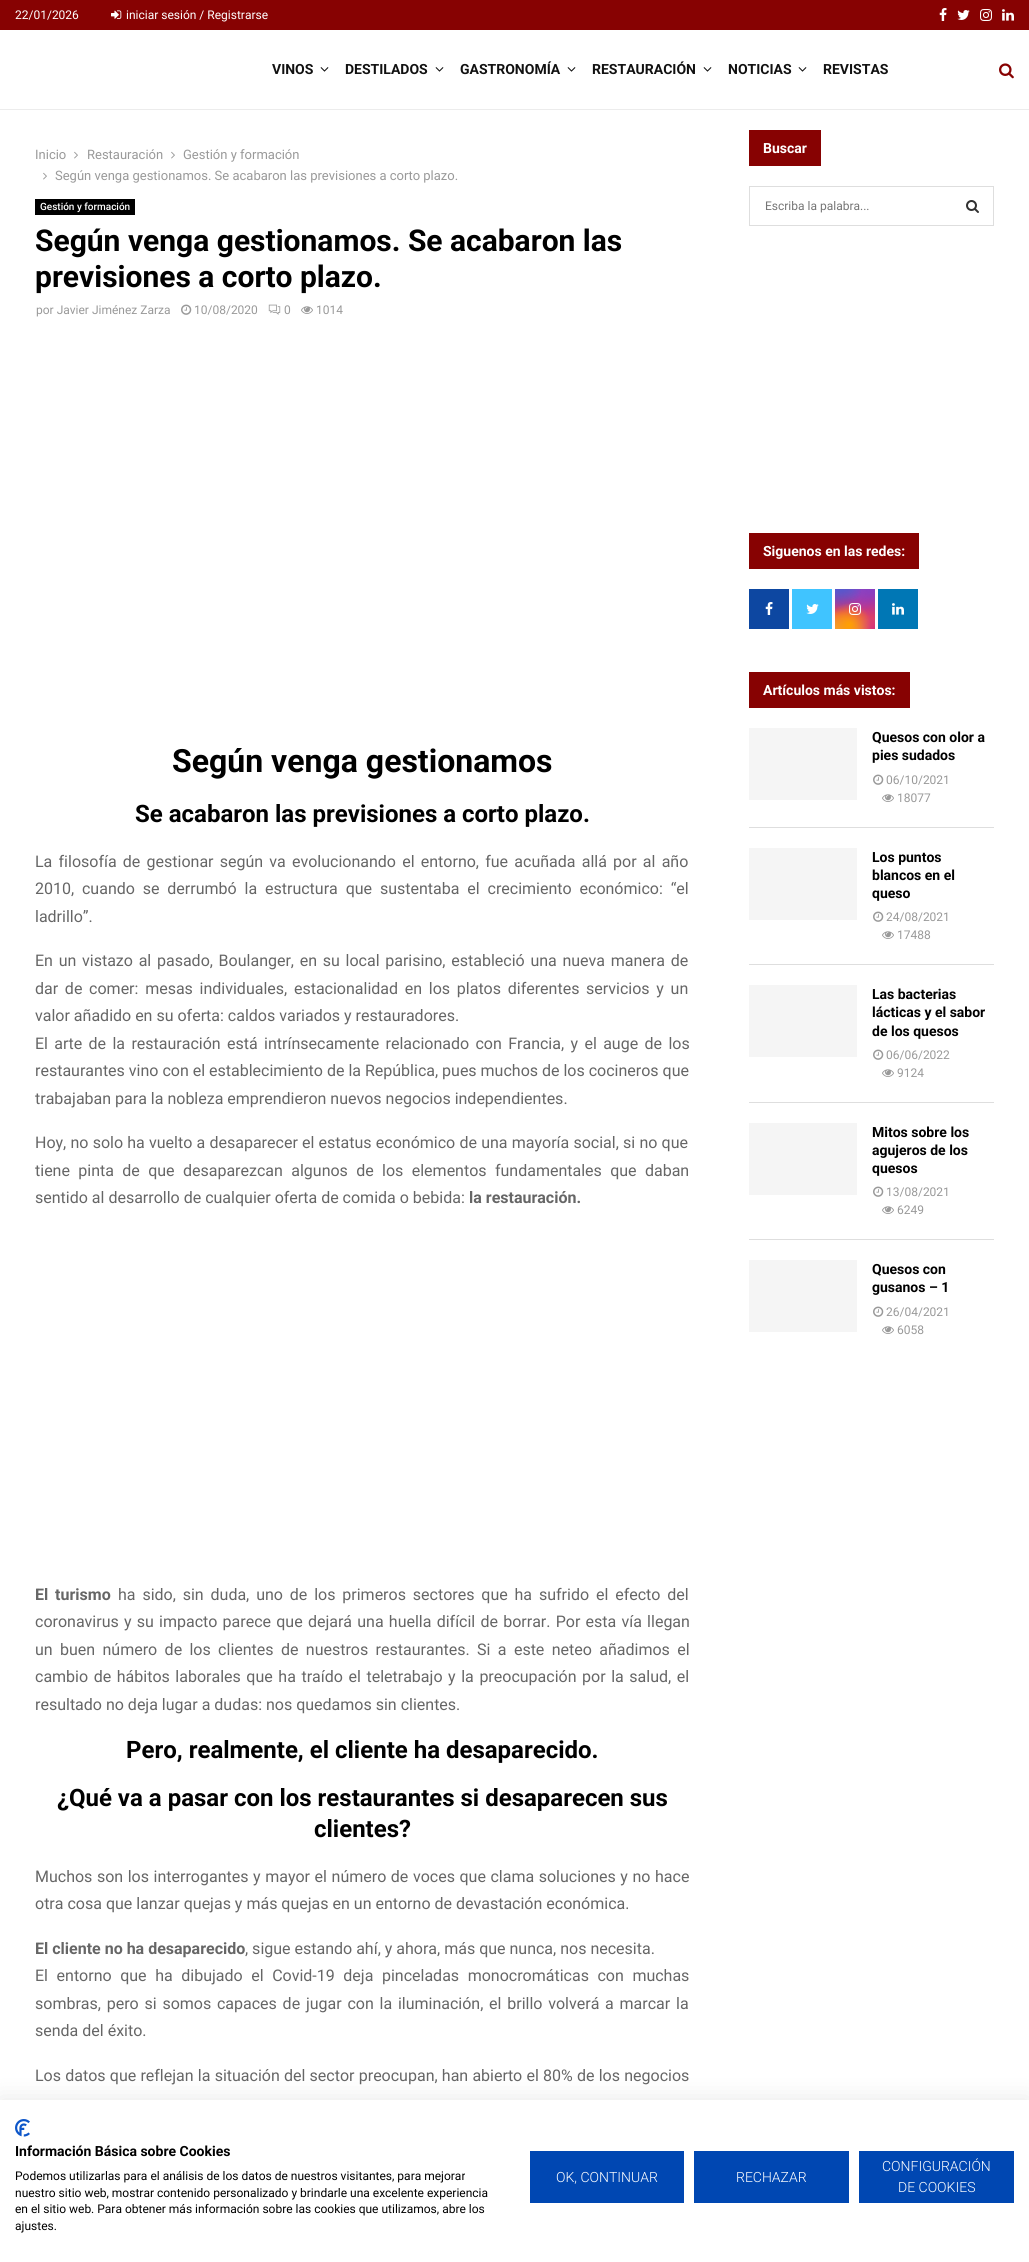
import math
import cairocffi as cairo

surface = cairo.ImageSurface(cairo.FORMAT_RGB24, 1029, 2262)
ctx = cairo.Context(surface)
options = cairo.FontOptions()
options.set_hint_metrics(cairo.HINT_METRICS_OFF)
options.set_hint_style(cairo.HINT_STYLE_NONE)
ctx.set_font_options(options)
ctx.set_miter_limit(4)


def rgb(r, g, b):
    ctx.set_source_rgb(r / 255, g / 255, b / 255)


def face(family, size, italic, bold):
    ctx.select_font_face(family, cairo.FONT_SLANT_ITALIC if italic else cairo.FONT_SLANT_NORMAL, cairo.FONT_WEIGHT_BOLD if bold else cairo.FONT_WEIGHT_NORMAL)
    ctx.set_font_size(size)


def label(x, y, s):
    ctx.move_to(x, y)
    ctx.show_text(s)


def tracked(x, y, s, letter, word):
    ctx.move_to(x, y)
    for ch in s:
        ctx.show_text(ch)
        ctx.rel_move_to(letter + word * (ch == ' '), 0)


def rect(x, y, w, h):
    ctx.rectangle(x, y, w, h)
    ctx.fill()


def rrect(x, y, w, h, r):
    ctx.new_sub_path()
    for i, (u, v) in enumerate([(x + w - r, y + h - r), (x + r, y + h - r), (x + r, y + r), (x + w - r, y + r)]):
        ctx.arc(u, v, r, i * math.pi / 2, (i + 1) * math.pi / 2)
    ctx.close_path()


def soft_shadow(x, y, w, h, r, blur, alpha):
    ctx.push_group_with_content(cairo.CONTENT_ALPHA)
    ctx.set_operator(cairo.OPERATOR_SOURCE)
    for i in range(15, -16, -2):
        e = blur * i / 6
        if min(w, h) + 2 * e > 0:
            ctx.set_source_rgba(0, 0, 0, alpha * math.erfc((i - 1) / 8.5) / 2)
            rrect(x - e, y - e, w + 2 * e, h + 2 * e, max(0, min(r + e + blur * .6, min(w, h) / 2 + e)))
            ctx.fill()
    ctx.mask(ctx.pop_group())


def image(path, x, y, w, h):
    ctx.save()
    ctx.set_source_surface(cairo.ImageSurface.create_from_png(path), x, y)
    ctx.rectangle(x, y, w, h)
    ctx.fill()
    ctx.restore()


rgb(255, 255, 255)
ctx.paint()
rgb(135, 2, 2)
rect(0, 0, 1029, 30)
face('Roboto', 12, 0, 0)
rgb(255, 255, 255)
label(15, 19, '22/01/2026')
image('image0.png', 111, 10, 11, 9)
label(126, 19, 'iniciar sesión / Registrarse')
image('image1.png', 939, 8, 8, 13)
image('image2.png', 957, 10, 13, 10)
image('image3.png', 980, 9, 12, 12)
image('image4.png', 1002, 9, 12, 12)
rgb(236, 236, 236)
rect(0, 109, 1029, 1)
face('Roboto', 14, 0, 1)
rgb(17, 17, 17)
label(272, 74, 'VINOS')
image('image5.png', 320, 67, 9, 5)
label(345, 74, 'DESTILADOS')
image('image5.png', 435, 67, 9, 5)
label(460, 74, 'GASTRONOMÍA')
image('image5.png', 567, 67, 9, 5)
label(592, 74, 'RESTAURACIÓN')
image('image5.png', 703, 67, 9, 5)
label(728, 74, 'NOTICIAS')
image('image5.png', 798, 67, 9, 5)
label(823, 74, 'REVISTAS')
image('image6.png', 999, 63, 15, 16)
face('Roboto', 13, 0, 0)
rgb(153, 153, 153)
label(35, 159, 'Inicio')
image('image7.png', 74, 151, 4, 8)
label(87, 159, 'Restauración')
image('image7.png', 171, 151, 4, 8)
label(183, 159, 'Gestión y formación')
image('image7.png', 43, 172, 4, 8)
label(55, 180, 'Según venga gestionamos. Se acabaron las previsiones a corto plazo.')
rgb(0, 0, 0)
rect(35, 199, 100, 16)
face('Roboto Medium', 10, 0, 0)
rgb(255, 255, 255)
label(40, 210, 'Gestión y formación')
face('Roboto', 30, 0, 1)
rgb(0, 0, 0)
label(35, 251, 'Según venga gestionamos. Se acabaron las')
label(35, 287, 'previsiones a corto plazo.')
face('Roboto', 12, 0, 0)
rgb(153, 153, 153)
label(36, 314, 'por Javier Jiménez Zarza')
image('image8.png', 181, 304, 11, 11)
label(194, 314, '10/08/2020')
image('image9.png', 268, 304, 13, 11)
label(284, 314, '0')
image('image10.png', 301, 306, 12, 8)
label(316, 314, '1014')
face('Roboto', 32, 0, 1)
rgb(0, 0, 0)
label(172, 772, 'Según venga gestionamos')
face('Roboto', 24, 0, 1)
label(135, 822, 'Se acabaron las previsiones a corto plazo.')
face('Roboto', 16, 0, 0)
rgb(102, 102, 102)
tracked(35, 867, 'La filosofía de gestionar según va evolucionando el entorno, fue acuñada allá por al año', 0, 2.25)
tracked(35, 894, '2010, cuando se derrumbó la estructura que sustentaba el crecimiento económico: “el', 0, 3.9)
label(35, 922, 'ladrillo”.')
tracked(35, 966, 'En un vistazo al pasado, Boulanger, en su local parisino, estableció una nueva manera de', 0, 1.75)
tracked(35, 994, 'dar de comer: mesas individuales, estacionalidad en los platos diferentes servicios y un', 0, 2.75)
label(35, 1021, 'valor añadido en su oferta: caldos variados y restauradores.')
tracked(35, 1049, 'El arte de la restauración está intrínsecamente relacionado con Francia, y el auge de los', 0, 2.4)
label(35, 1076, 'restaurantes vino con el establecimiento de la República, pues muchos de los cocineros que')
label(35, 1104, 'trabajaban para la nobleza emprendieron nuevos negocios independientes.')
tracked(35, 1148, 'Hoy, no solo ha vuelto a desaparecer el estatus económico de una mayoría social, si no que', 0, 0.25)
tracked(35, 1176, 'tiene pinta de que desaparezcan algunos de los elementos fundamentales que daban', 0, 4.4)
label(35, 1203, 'sentido al desarrollo de cualquier oferta de comida o bebida:')
face('Roboto', 16, 0, 1)
label(469, 1203, 'la restauración.')
tracked(35, 1600, 'El turismo', 0, 2.9)
face('Roboto', 16, 0, 0)
tracked(118, 1600, 'ha sido, sin duda, uno de los primeros sectores que ha sufrido el efecto del', 0, 2.9)
tracked(35, 1627, 'coronavirus y su impacto parece que dejará una huella difícil de borrar. Por esta vía llegan', 0, 1.25)
tracked(35, 1655, 'un buen número de los clientes de nuestros restaurantes. Si a este neteo añadimos el', 0, 3.4)
tracked(35, 1682, 'cambio de hábitos laborales que ha traído el teletrabajo y la preocupación por la salud, el', 0, 1.6)
label(35, 1710, 'resultado no deja lugar a dudas: nos quedamos sin clientes.')
face('Roboto', 24, 0, 1)
rgb(0, 0, 0)
label(126, 1758, 'Pero, realmente, el cliente ha desaparecido.')
label(57, 1806, '¿Qué va a pasar con los restaurantes si desaparecen sus')
label(314, 1837, 'clientes?')
face('Roboto', 16, 0, 0)
rgb(102, 102, 102)
tracked(35, 1882, 'Muchos son los interrogantes y mayor el número de voces que clama soluciones y no hace', 0, 0.6)
label(35, 1909, 'otra cosa que lanzar quejas y más quejas en un entorno de devastación económica.')
face('Roboto', 16, 0, 1)
label(35, 1954, 'El cliente no ha desaparecido')
face('Roboto', 16, 0, 0)
label(245, 1954, ', sigue estando ahí, y ahora, más que nunca, nos necesita.')
tracked(35, 1981, 'El entorno que ha dibujado el Covid-19 deja pinceladas monocromáticas con muchas', 0, 4.6)
tracked(35, 2009, 'sombras, pero si somos capaces de jugar con la iluminación, el brillo volverá a marcar la', 0, 1.8)
label(35, 2036, 'senda del éxito.')
tracked(35, 2081, 'Los datos que reflejan la situación del sector preocupan, han abierto el 80% de los negocios', 0, 0.25)
rgb(135, 2, 2)
rect(749, 130, 72, 36)
face('Roboto', 14, 0, 1)
rgb(255, 255, 255)
label(763, 153, 'Buscar')
ctx.rectangle(749.5, 186.5, 244, 39)
rgb(222, 222, 222)
ctx.set_line_width(1)
ctx.stroke()
face('Roboto', 12, 0, 0)
rgb(117, 117, 117)
label(765, 210, 'Escriba la palabra...')
image('image11.png', 966, 200, 13, 13)
rgb(135, 2, 2)
rect(749, 533, 170, 36)
face('Roboto', 14, 0, 1)
rgb(255, 255, 255)
label(763, 556, 'Siguenos en las redes:')
rgb(13, 71, 161)
rect(749, 589, 40, 40)
image('image12.png', 765, 602, 8, 13)
rgb(64, 196, 255)
rect(792, 589, 40, 40)
image('image13.png', 806, 604, 13, 10)
gradient = cairo.LinearGradient(855, 589, 855, 629)
gradient.add_color_stop_rgba(0, 0.396, 0.349, 0.792, 1)
gradient.add_color_stop_rgba(0.3, 0.737, 0.192, 0.561, 1)
gradient.add_color_stop_rgba(0.5, 0.89, 0.247, 0.373, 1)
gradient.add_color_stop_rgba(0.7, 0.969, 0.463, 0.22, 1)
gradient.add_color_stop_rgba(1, 0.996, 0.776, 0.427, 1)
ctx.set_source(gradient)
rect(835, 589, 40, 40)
gradient = cairo.RadialGradient(875, 629, 0, 875, 629, 57)
gradient.add_color_stop_rgba(0, 0.831, 0.192, 0.471, 1)
gradient.add_color_stop_rgba(1, 0.831, 0.192, 0.471, 0)
ctx.set_source(gradient)
rect(835, 589, 40, 40)
gradient = cairo.RadialGradient(0, 0, 0, 0, 0, 1)
gradient.set_matrix(cairo.Matrix(1 / 34, 0, 0, 1 / 68, -1 * 859 / 34, -1 * 581 / 68))
gradient.add_color_stop_rgba(0, 0.561, 0.267, 0.78, 1)
gradient.add_color_stop_rgba(0.5, 0.561, 0.267, 0.78, 0)
ctx.set_source(gradient)
rect(844, 589, 30, 25)
gradient = cairo.RadialGradient(875, 589, 0, 875, 589, 57)
gradient.add_color_stop_rgba(0, 0.537, 0.239, 0.761, 1)
gradient.add_color_stop_rgba(0.5, 0.537, 0.239, 0.761, 0)
ctx.set_source(gradient)
rect(850, 589, 25, 28)
gradient = cairo.RadialGradient(0, 0, 0, 0, 0, 1)
gradient.set_matrix(cairo.Matrix(1 / 45, 0, 0, 1 / 85, -1 * 843 / 45, -1 * 569 / 85))
gradient.add_color_stop_rgba(0, 0.322, 0.345, 0.812, 1)
gradient.add_color_stop_rgba(0.5, 0.322, 0.345, 0.812, 0)
ctx.set_source(gradient)
rect(835, 589, 26, 22)
gradient = cairo.RadialGradient(0, 0, 0, 0, 0, 1)
gradient.set_matrix(cairo.Matrix(1 / 57, 0, 0, 1 / 71, -1 * 835 / 57, -1 * 579 / 71))
gradient.add_color_stop_rgba(0, 0.322, 0.345, 0.812, 1)
gradient.add_color_stop_rgba(0.5, 0.322, 0.345, 0.812, 0)
ctx.set_source(gradient)
rect(835, 589, 26, 25)
gradient = cairo.RadialGradient(835, 645, 0, 835, 645, 69)
gradient.add_color_stop_rgba(0, 0.937, 0.631, 0.11, 1)
gradient.add_color_stop_rgba(0.5, 0.937, 0.631, 0.11, 0)
ctx.set_source(gradient)
rect(835, 611, 29, 18)
gradient = cairo.RadialGradient(849, 625, 0, 849, 625, 44)
gradient.add_color_stop_rgba(0, 1, 0.631, 0, 1)
gradient.add_color_stop_rgba(0.5, 1, 0.631, 0, 0)
ctx.set_source(gradient)
rect(835, 603, 36, 26)
image('image14.png', 849, 603, 12, 12)
rgb(0, 119, 181)
rect(878, 589, 40, 40)
image('image15.png', 892, 603, 12, 12)
rgb(135, 2, 2)
rect(749, 672, 161, 36)
rgb(255, 255, 255)
label(763, 695, 'Artículos más vistos:')
rgb(222, 222, 222)
rect(749, 827, 245, 1)
rgb(245, 245, 245)
rect(749, 728, 108, 72)
rgb(0, 0, 0)
label(872, 742, 'Quesos con olor a')
label(872, 760, 'pies sudados')
image('image8.png', 873, 774, 11, 11)
face('Roboto', 12, 0, 0)
rgb(153, 153, 153)
label(886, 784, '06/10/2021')
image('image10.png', 882, 794, 12, 8)
label(897, 802, '18077')
rgb(222, 222, 222)
rect(749, 964, 245, 1)
rgb(245, 245, 245)
rect(749, 848, 108, 72)
face('Roboto', 14, 0, 1)
rgb(0, 0, 0)
label(872, 862, 'Los puntos')
label(872, 880, 'blancos en el')
label(872, 898, 'queso')
image('image8.png', 873, 911, 11, 11)
face('Roboto', 12, 0, 0)
rgb(153, 153, 153)
label(886, 921, '24/08/2021')
image('image10.png', 882, 931, 12, 8)
label(897, 939, '17488')
rgb(222, 222, 222)
rect(749, 1102, 245, 1)
rgb(245, 245, 245)
rect(749, 985, 108, 72)
face('Roboto', 14, 0, 1)
rgb(0, 0, 0)
label(872, 999, 'Las bacterias')
label(872, 1017, 'lácticas y el sabor')
label(872, 1036, 'de los quesos')
image('image8.png', 873, 1049, 11, 11)
face('Roboto', 12, 0, 0)
rgb(153, 153, 153)
label(886, 1059, '06/06/2022')
image('image10.png', 882, 1069, 12, 8)
label(897, 1077, '9124')
rgb(222, 222, 222)
rect(749, 1239, 245, 1)
rgb(245, 245, 245)
rect(749, 1123, 108, 72)
face('Roboto', 14, 0, 1)
rgb(0, 0, 0)
label(872, 1137, 'Mitos sobre los')
label(872, 1155, 'agujeros de los')
label(872, 1173, 'quesos')
image('image8.png', 873, 1186, 11, 11)
face('Roboto', 12, 0, 0)
rgb(153, 153, 153)
label(886, 1196, '13/08/2021')
image('image10.png', 882, 1206, 12, 8)
label(897, 1214, '6249')
rgb(245, 245, 245)
rect(749, 1260, 108, 72)
face('Roboto', 14, 0, 1)
rgb(0, 0, 0)
label(872, 1274, 'Quesos con')
label(872, 1292, 'gusanos – 1')
image('image8.png', 873, 1306, 11, 11)
face('Roboto', 12, 0, 0)
rgb(153, 153, 153)
label(886, 1316, '26/04/2021')
image('image10.png', 882, 1326, 12, 8)
label(897, 1334, '6058')
rgb(0, 0, 0)
soft_shadow(0, 2100, 1029, 162, 0, 12, 0.1)
rgb(255, 255, 255)
rect(0, 2100, 1029, 162)
image('image16.png', 15, 2119, 15, 18)
face('Roboto', 14, 0, 1)
rgb(0, 0, 0)
label(15, 2156, 'Información Básica sobre Cookies')
face('Roboto', 12, 0, 0)
label(15, 2180, 'Podemos utilizarlas para el análisis de los datos de nuestros visitantes, para mejorar')
label(15, 2197, 'nuestro sitio web, mostrar contenido personalizado y brindarle una excelente experiencia')
label(15, 2213, 'en el sitio web. Para obtener más información sobre las cookies que utilizamos, abre los')
label(15, 2230, 'ajustes.')
rgb(0, 71, 178)
rect(530, 2151, 154, 52)
face('Roboto Light', 14, 0, 0)
rgb(255, 255, 255)
label(556, 2182, 'OK, CONTINUAR')
rgb(0, 71, 178)
rect(694, 2151, 155, 52)
rgb(255, 255, 255)
label(736, 2182, 'RECHAZAR')
rgb(0, 71, 178)
rect(859, 2151, 155, 52)
rgb(255, 255, 255)
label(882, 2171, 'CONFIGURACIÓN')
label(898, 2192, 'DE COOKIES')
surface.write_to_png('render.png')
